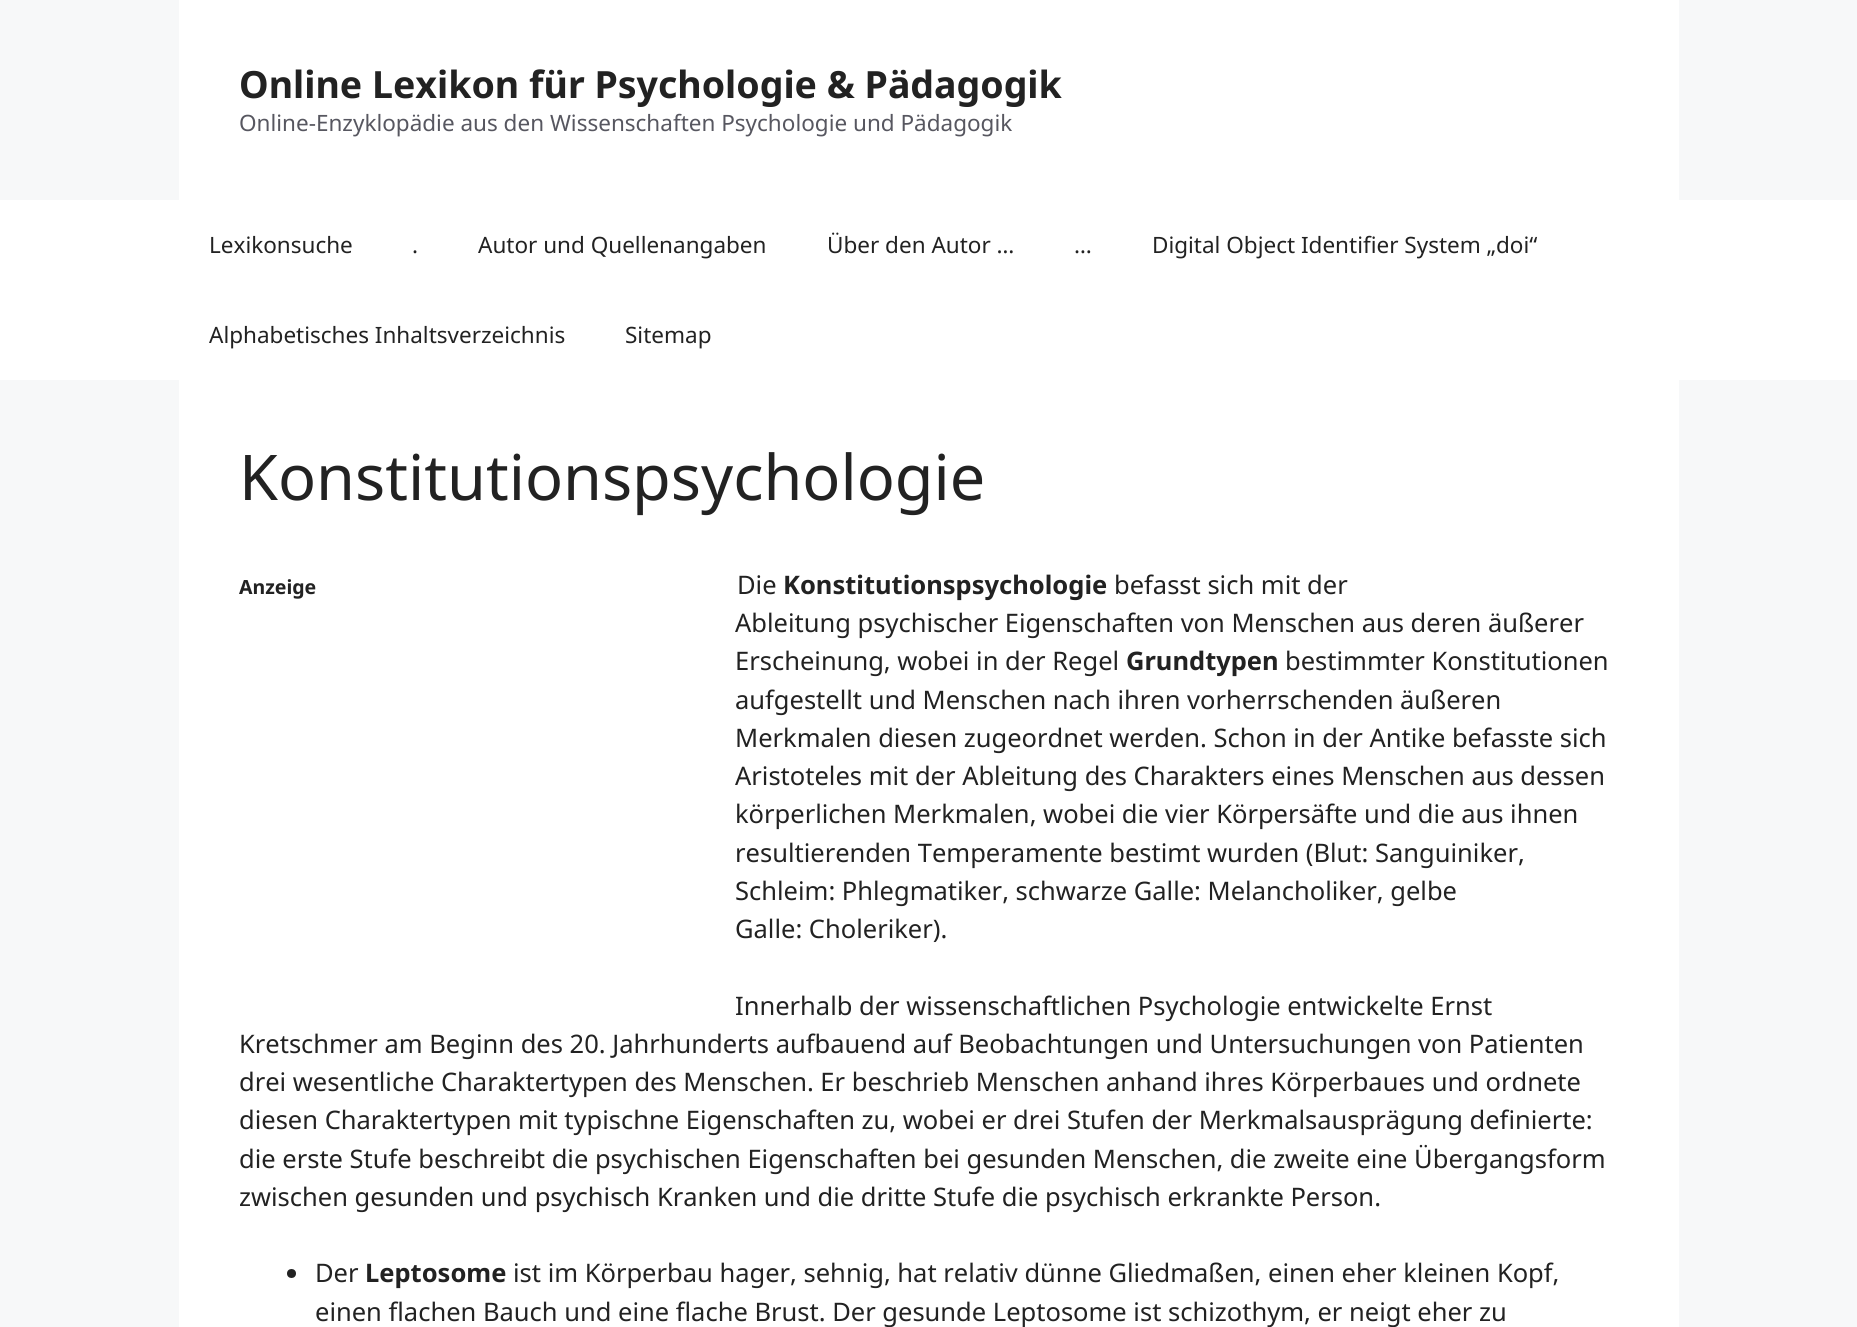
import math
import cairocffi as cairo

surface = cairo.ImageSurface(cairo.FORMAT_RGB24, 1857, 1327)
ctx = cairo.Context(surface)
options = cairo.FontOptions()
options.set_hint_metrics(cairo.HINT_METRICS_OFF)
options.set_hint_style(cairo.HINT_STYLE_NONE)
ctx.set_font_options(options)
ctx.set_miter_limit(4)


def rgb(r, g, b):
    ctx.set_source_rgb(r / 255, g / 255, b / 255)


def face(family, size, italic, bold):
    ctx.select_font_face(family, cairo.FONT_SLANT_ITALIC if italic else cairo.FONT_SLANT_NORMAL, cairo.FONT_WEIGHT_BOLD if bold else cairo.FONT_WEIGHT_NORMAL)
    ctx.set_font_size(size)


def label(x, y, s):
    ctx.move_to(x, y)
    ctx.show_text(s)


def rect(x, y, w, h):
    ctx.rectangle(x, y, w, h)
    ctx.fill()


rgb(247, 248, 249)
ctx.paint()
rgb(255, 255, 255)
rect(179, 0, 1500, 200)
face('Noto Sans', 37.5, 0, 1)
rgb(34, 34, 34)
label(239, 98, 'Online Lexikon für Psychologie & Pädagogik')
face('Noto Sans', 22.5, 0, 0)
rgb(87, 87, 96)
label(239, 131, 'Online-Enzyklopädie aus den Wissenschaften Psychologie und Pädagogik')
rgb(255, 255, 255)
rect(0, 200, 1857, 180)
rgb(34, 34, 34)
label(209, 253, 'Lexikonsuche')
label(412, 253, '.')
label(478, 253, 'Autor und Quellenangaben')
label(827, 253, 'Über den Autor …')
label(1074, 253, '…')
label(1152, 253, 'Digital Object Identifier System „doi“')
label(209, 343, 'Alphabetisches Inhaltsverzeichnis')
label(625, 343, 'Sitemap')
rgb(255, 255, 255)
rect(179, 380, 1500, 947)
face('Noto Sans', 63, 0, 0)
rgb(34, 34, 34)
label(239, 500, 'Konstitutionspsychologie')
face('Noto Sans', 19.5, 0, 1)
label(239, 594, 'Anzeige')
face('Noto Sans', 25.5, 0, 0)
label(737, 594, 'Die')
face('Noto Sans', 25.5, 0, 1)
label(783, 594, 'Konstitutionspsychologie')
face('Noto Sans', 25.5, 0, 0)
label(1114, 594, 'befasst sich mit der')
label(735, 632, 'Ableitung psychischer Eigenschaften von Menschen aus deren äußerer')
label(735, 670, 'Erscheinung, wobei in der Regel')
face('Noto Sans', 25.5, 0, 1)
label(1126, 670, 'Grundtypen')
face('Noto Sans', 25.5, 0, 0)
label(1285, 670, 'bestimmter Konstitutionen')
label(735, 709, 'aufgestellt und Menschen nach ihren vorherrschenden äußeren')
label(735, 747, 'Merkmalen diesen zugeordnet werden. Schon in der Antike befasste sich')
label(735, 785, 'Aristoteles mit der Ableitung des Charakters eines Menschen aus dessen')
label(735, 823, 'körperlichen Merkmalen, wobei die vier Körpersäfte und die aus ihnen')
label(735, 862, 'resultierenden Temperamente bestimt wurden (Blut: Sanguiniker,')
label(735, 900, 'Schleim: Phlegmatiker, schwarze Galle: Melancholiker, gelbe')
label(735, 938, 'Galle: Choleriker).')
label(735, 1015, 'Innerhalb der wissenschaftlichen Psychologie entwickelte Ernst')
label(239, 1053, 'Kretschmer am Beginn des 20. Jahrhunderts aufbauend auf Beobachtungen und Untersuchungen von Patienten')
label(239, 1091, 'drei wesentliche Charaktertypen des Menschen. Er beschrieb Menschen anhand ihres Körperbaues und ordnete')
label(239, 1129, 'diesen Charaktertypen mit typischne Eigenschaften zu, wobei er drei Stufen der Merkmalsausprägung definierte:')
label(239, 1168, 'die erste Stufe beschreibt die psychischen Eigenschaften bei gesunden Menschen, die zweite eine Übergangsform')
label(239, 1206, 'zwischen gesunden und psychisch Kranken und die dritte Stufe die psychisch erkrankte Person.')
ctx.new_path()
ctx.arc(291.5, 1273.5, 4.5, 0, 2 * math.pi)
ctx.fill()
label(315, 1282, 'Der')
face('Noto Sans', 25.5, 0, 1)
label(365, 1282, 'Leptosome')
face('Noto Sans', 25.5, 0, 0)
label(513, 1282, 'ist im Körperbau hager, sehnig, hat relativ dünne Gliedmaßen, einen eher kleinen Kopf,')
label(315, 1321, 'einen flachen Bauch und eine flache Brust. Der gesunde Leptosome ist schizothym, er neigt eher zu')
surface.write_to_png('render.png')
